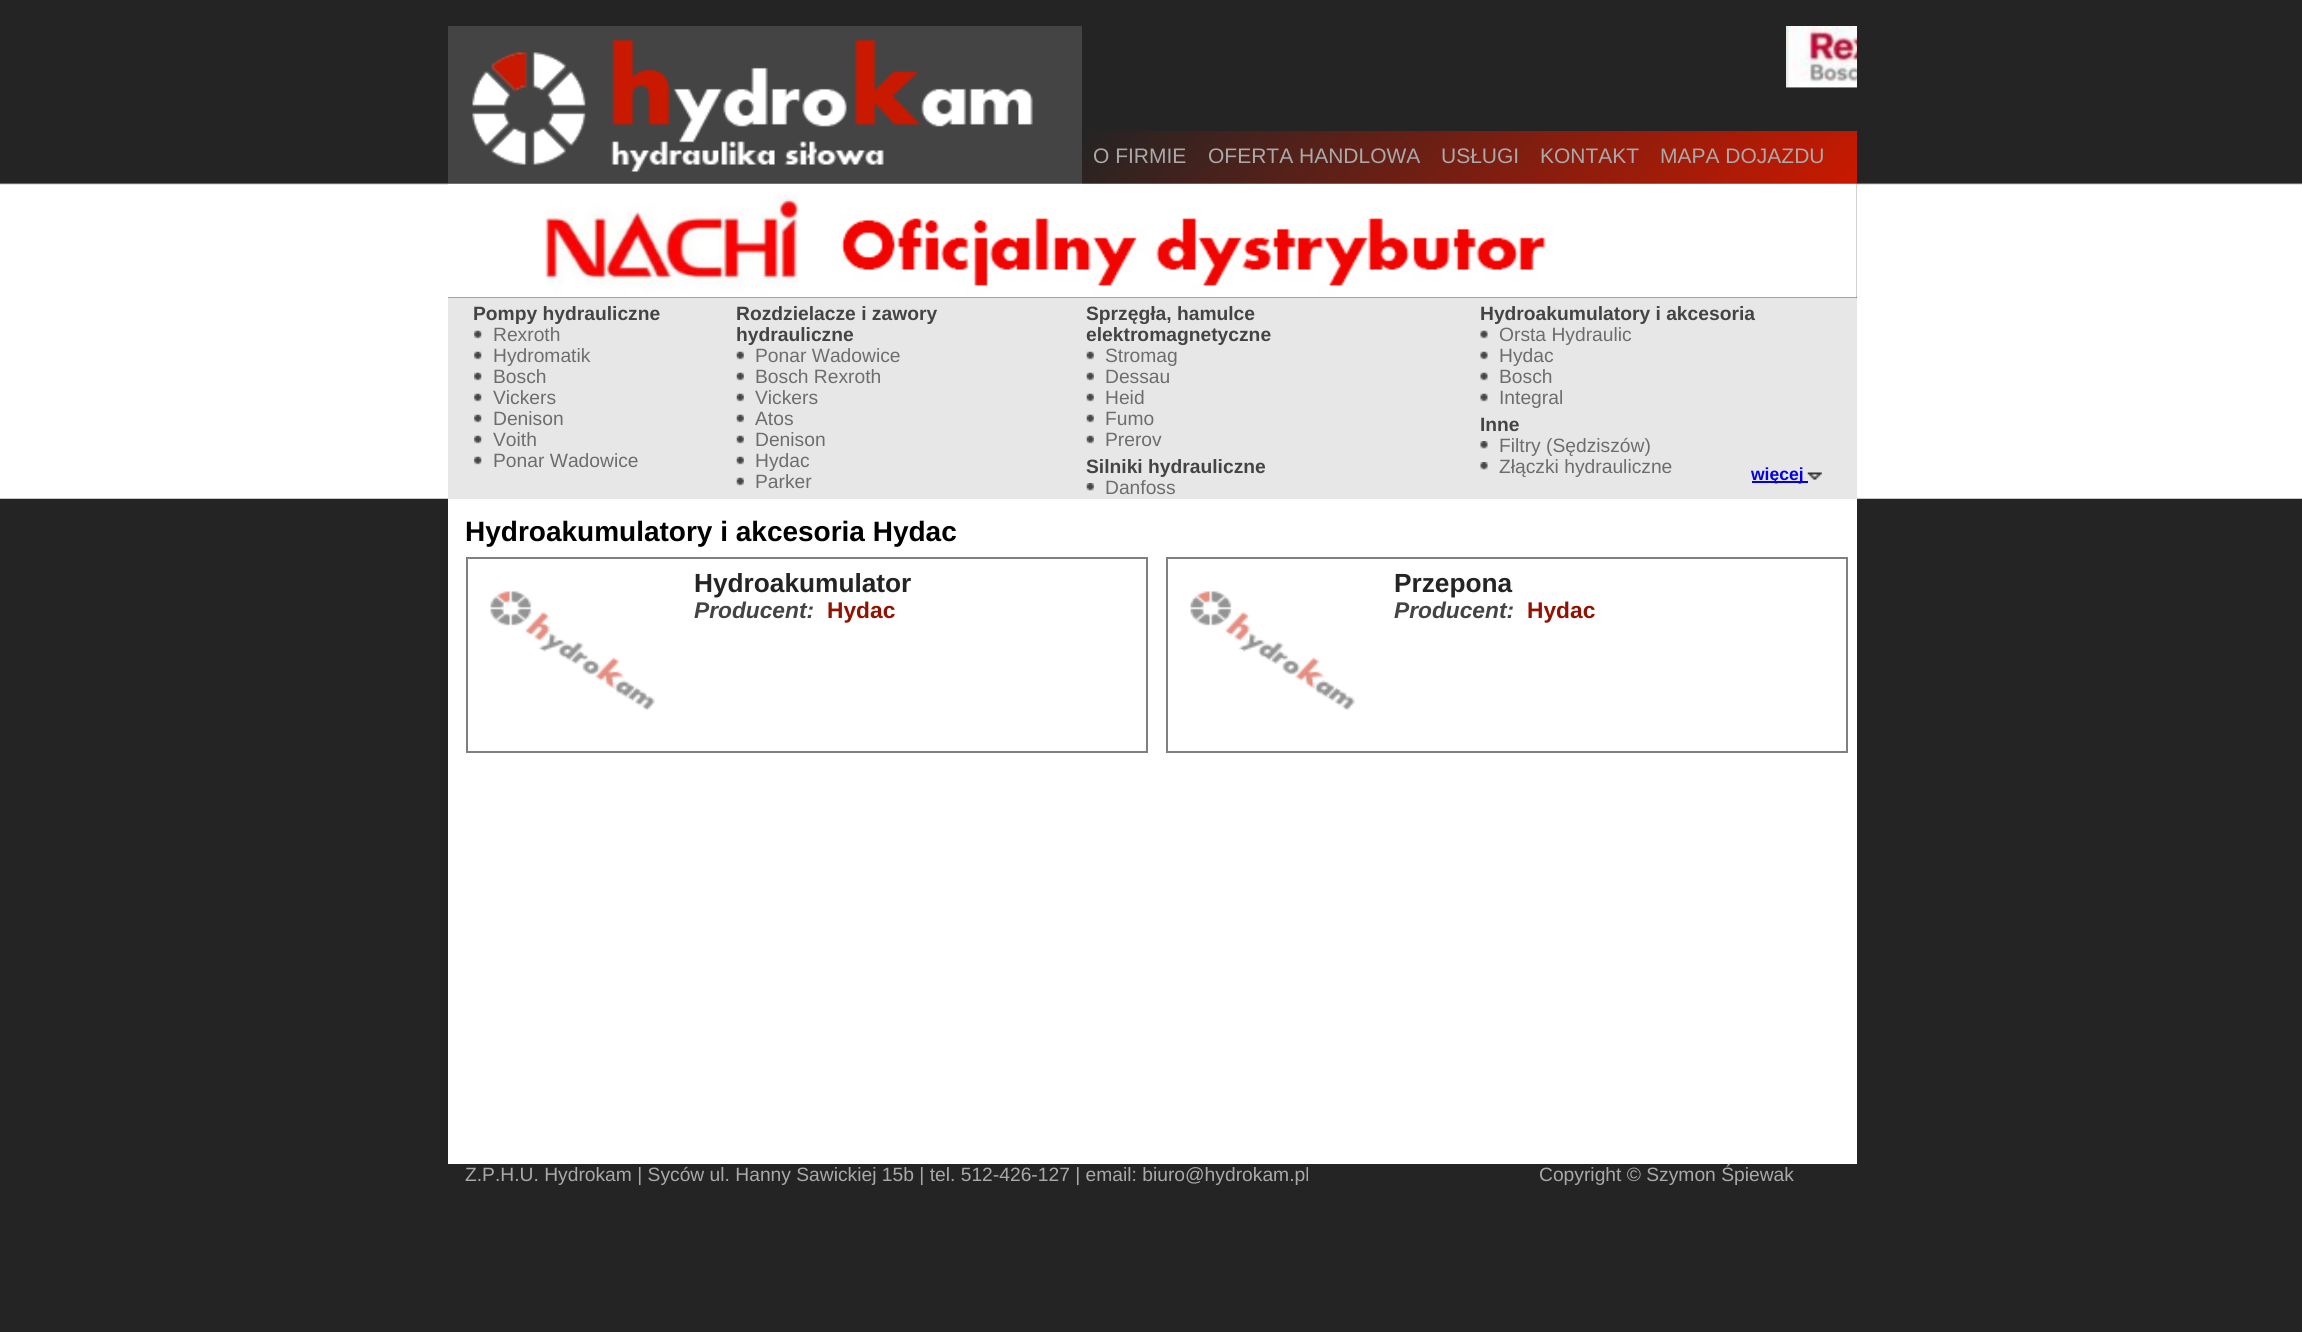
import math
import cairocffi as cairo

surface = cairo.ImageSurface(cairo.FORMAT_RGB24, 2302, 1332)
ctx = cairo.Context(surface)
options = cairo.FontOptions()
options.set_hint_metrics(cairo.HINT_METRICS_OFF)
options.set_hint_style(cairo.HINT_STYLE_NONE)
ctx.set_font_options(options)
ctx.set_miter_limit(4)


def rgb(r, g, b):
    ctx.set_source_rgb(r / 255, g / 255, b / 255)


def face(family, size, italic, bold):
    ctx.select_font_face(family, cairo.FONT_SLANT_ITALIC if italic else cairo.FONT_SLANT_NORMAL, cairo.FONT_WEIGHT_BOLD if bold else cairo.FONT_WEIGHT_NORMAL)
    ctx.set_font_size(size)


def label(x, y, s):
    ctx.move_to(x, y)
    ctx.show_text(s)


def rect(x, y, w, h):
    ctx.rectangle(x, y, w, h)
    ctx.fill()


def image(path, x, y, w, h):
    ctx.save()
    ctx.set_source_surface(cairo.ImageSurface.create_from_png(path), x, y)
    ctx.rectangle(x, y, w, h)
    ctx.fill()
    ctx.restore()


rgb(36, 36, 36)
ctx.paint()
image('image0.png', 0, 183, 2302, 316)
rgb(68, 68, 68)
rect(448, 26, 1409, 272)
image('image1.png', 472, 39, 561, 133)
rgb(36, 36, 36)
rect(1082, 26, 775, 105)
image('image2.png', 1786, 26, 71, 62)
gradient = cairo.LinearGradient(1262, -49, 1676, 364)
gradient.add_color_stop_rgba(0, 0.141, 0.141, 0.141, 1)
gradient.add_color_stop_rgba(1, 0.788, 0.098, 0, 1)
ctx.set_source(gradient)
rect(1082, 131, 775, 53)
face('Liberation Sans', 21, 0, 0)
rgb(169, 169, 169)
label(1093, 163, 'O FIRMIE')
label(1208, 163, 'OFERTA HANDLOWA')
label(1441, 163, 'USŁUGI')
label(1540, 163, 'KONTAKT')
label(1660, 163, 'MAPA DOJAZDU')
image('image3.png', 448, 183, 1409, 115)
rgb(231, 231, 231)
rect(448, 298, 1409, 201)
face('Liberation Sans', 19.25, 0, 1)
rgb(68, 68, 68)
label(473, 320, 'Pompy hydrauliczne')
image('image4.png', 474, 330, 8, 9)
face('Liberation Sans', 19.25, 0, 0)
rgb(109, 109, 109)
label(493, 341, 'Rexroth')
image('image4.png', 474, 351, 8, 9)
label(493, 362, 'Hydromatik')
image('image4.png', 474, 372, 8, 9)
label(493, 383, 'Bosch')
image('image4.png', 474, 393, 8, 9)
label(493, 404, 'Vickers')
image('image4.png', 474, 414, 8, 9)
label(493, 425, 'Denison')
image('image4.png', 474, 435, 8, 9)
label(493, 446, 'Voith')
image('image4.png', 474, 456, 8, 9)
label(493, 467, 'Ponar Wadowice')
face('Liberation Sans', 19.25, 0, 1)
rgb(68, 68, 68)
label(736, 320, 'Rozdzielacze i zawory')
label(736, 341, 'hydrauliczne')
image('image5.png', 736, 351, 8, 9)
face('Liberation Sans', 19.25, 0, 0)
rgb(109, 109, 109)
label(755, 362, 'Ponar Wadowice')
image('image5.png', 736, 372, 8, 9)
label(755, 383, 'Bosch Rexroth')
image('image5.png', 736, 393, 8, 9)
label(755, 404, 'Vickers')
image('image5.png', 736, 414, 8, 9)
label(755, 425, 'Atos')
image('image5.png', 736, 435, 8, 9)
label(755, 446, 'Denison')
image('image5.png', 736, 456, 8, 9)
label(755, 467, 'Hydac')
image('image5.png', 736, 477, 8, 9)
label(755, 488, 'Parker')
face('Liberation Sans', 19.25, 0, 1)
rgb(68, 68, 68)
label(1086, 320, 'Sprzęgła, hamulce')
label(1086, 341, 'elektromagnetyczne')
image('image6.png', 1086, 351, 8, 9)
face('Liberation Sans', 19.25, 0, 0)
rgb(109, 109, 109)
label(1105, 362, 'Stromag')
image('image6.png', 1086, 372, 8, 9)
label(1105, 383, 'Dessau')
image('image6.png', 1086, 393, 8, 9)
label(1105, 404, 'Heid')
image('image6.png', 1086, 414, 8, 9)
label(1105, 425, 'Fumo')
image('image6.png', 1086, 435, 8, 9)
label(1105, 446, 'Prerov')
face('Liberation Sans', 19.25, 0, 1)
rgb(68, 68, 68)
label(1086, 473, 'Silniki hydrauliczne')
image('image7.png', 1086, 483, 8, 8)
face('Liberation Sans', 19.25, 0, 0)
rgb(109, 109, 109)
label(1105, 494, 'Danfoss')
face('Liberation Sans', 19.25, 0, 1)
rgb(68, 68, 68)
label(1480, 320, 'Hydroakumulatory i akcesoria')
image('image8.png', 1480, 330, 8, 9)
face('Liberation Sans', 19.25, 0, 0)
rgb(109, 109, 109)
label(1499, 341, 'Orsta Hydraulic')
image('image8.png', 1480, 351, 8, 9)
label(1499, 362, 'Hydac')
image('image8.png', 1480, 372, 8, 9)
label(1499, 383, 'Bosch')
image('image8.png', 1480, 393, 8, 9)
label(1499, 404, 'Integral')
face('Liberation Sans', 19.25, 0, 1)
rgb(68, 68, 68)
label(1480, 431, 'Inne')
image('image9.png', 1480, 441, 8, 8)
face('Liberation Sans', 19.25, 0, 0)
rgb(109, 109, 109)
label(1499, 452, 'Filtry (Sędziszów)')
image('image9.png', 1480, 462, 8, 8)
label(1499, 473, 'Złączki hydrauliczne')
rgb(0, 0, 238)
rect(1752, 481, 56, 2)
face('Liberation Sans', 17.5, 0, 1)
label(1751, 480, 'więcej')
image('image10.png', 1807, 472, 15, 8)
rgb(255, 255, 255)
rect(448, 499, 1409, 665)
face('Liberation Sans', 28, 0, 1)
rgb(0, 0, 0)
label(465, 541, 'Hydroakumulatory i akcesoria Hydac')
ctx.rectangle(467, 558, 680, 194)
rgb(128, 128, 128)
ctx.stroke()
face('Liberation Sans', 26.25, 0, 1)
rgb(36, 36, 36)
label(694, 592, 'Hydroakumulator')
image('image11.png', 490, 591, 165, 120)
face('Liberation Sans', 22.75, 1, 1)
rgb(68, 68, 68)
label(694, 618, 'Producent:')
face('Liberation Sans', 22.75, 0, 1)
rgb(145, 18, 0)
label(827, 618, 'Hydac')
ctx.rectangle(1167, 558, 680, 194)
rgb(128, 128, 128)
ctx.stroke()
face('Liberation Sans', 26.25, 0, 1)
rgb(36, 36, 36)
label(1394, 592, 'Przepona')
image('image12.png', 1190, 591, 165, 120)
face('Liberation Sans', 22.75, 1, 1)
rgb(68, 68, 68)
label(1394, 618, 'Producent:')
face('Liberation Sans', 22.75, 0, 1)
rgb(145, 18, 0)
label(1527, 618, 'Hydac')
face('Liberation Sans', 19.25, 0, 0)
rgb(169, 169, 169)
label(465, 1181, 'Z.P.H.U. Hydrokam | Syców ul. Hanny Sawickiej 15b | tel. 512-426-127 | email: biuro@hydrokam.pl')
label(1539, 1181, 'Copyright © Szymon Śpiewak')
surface.write_to_png('render.png')
